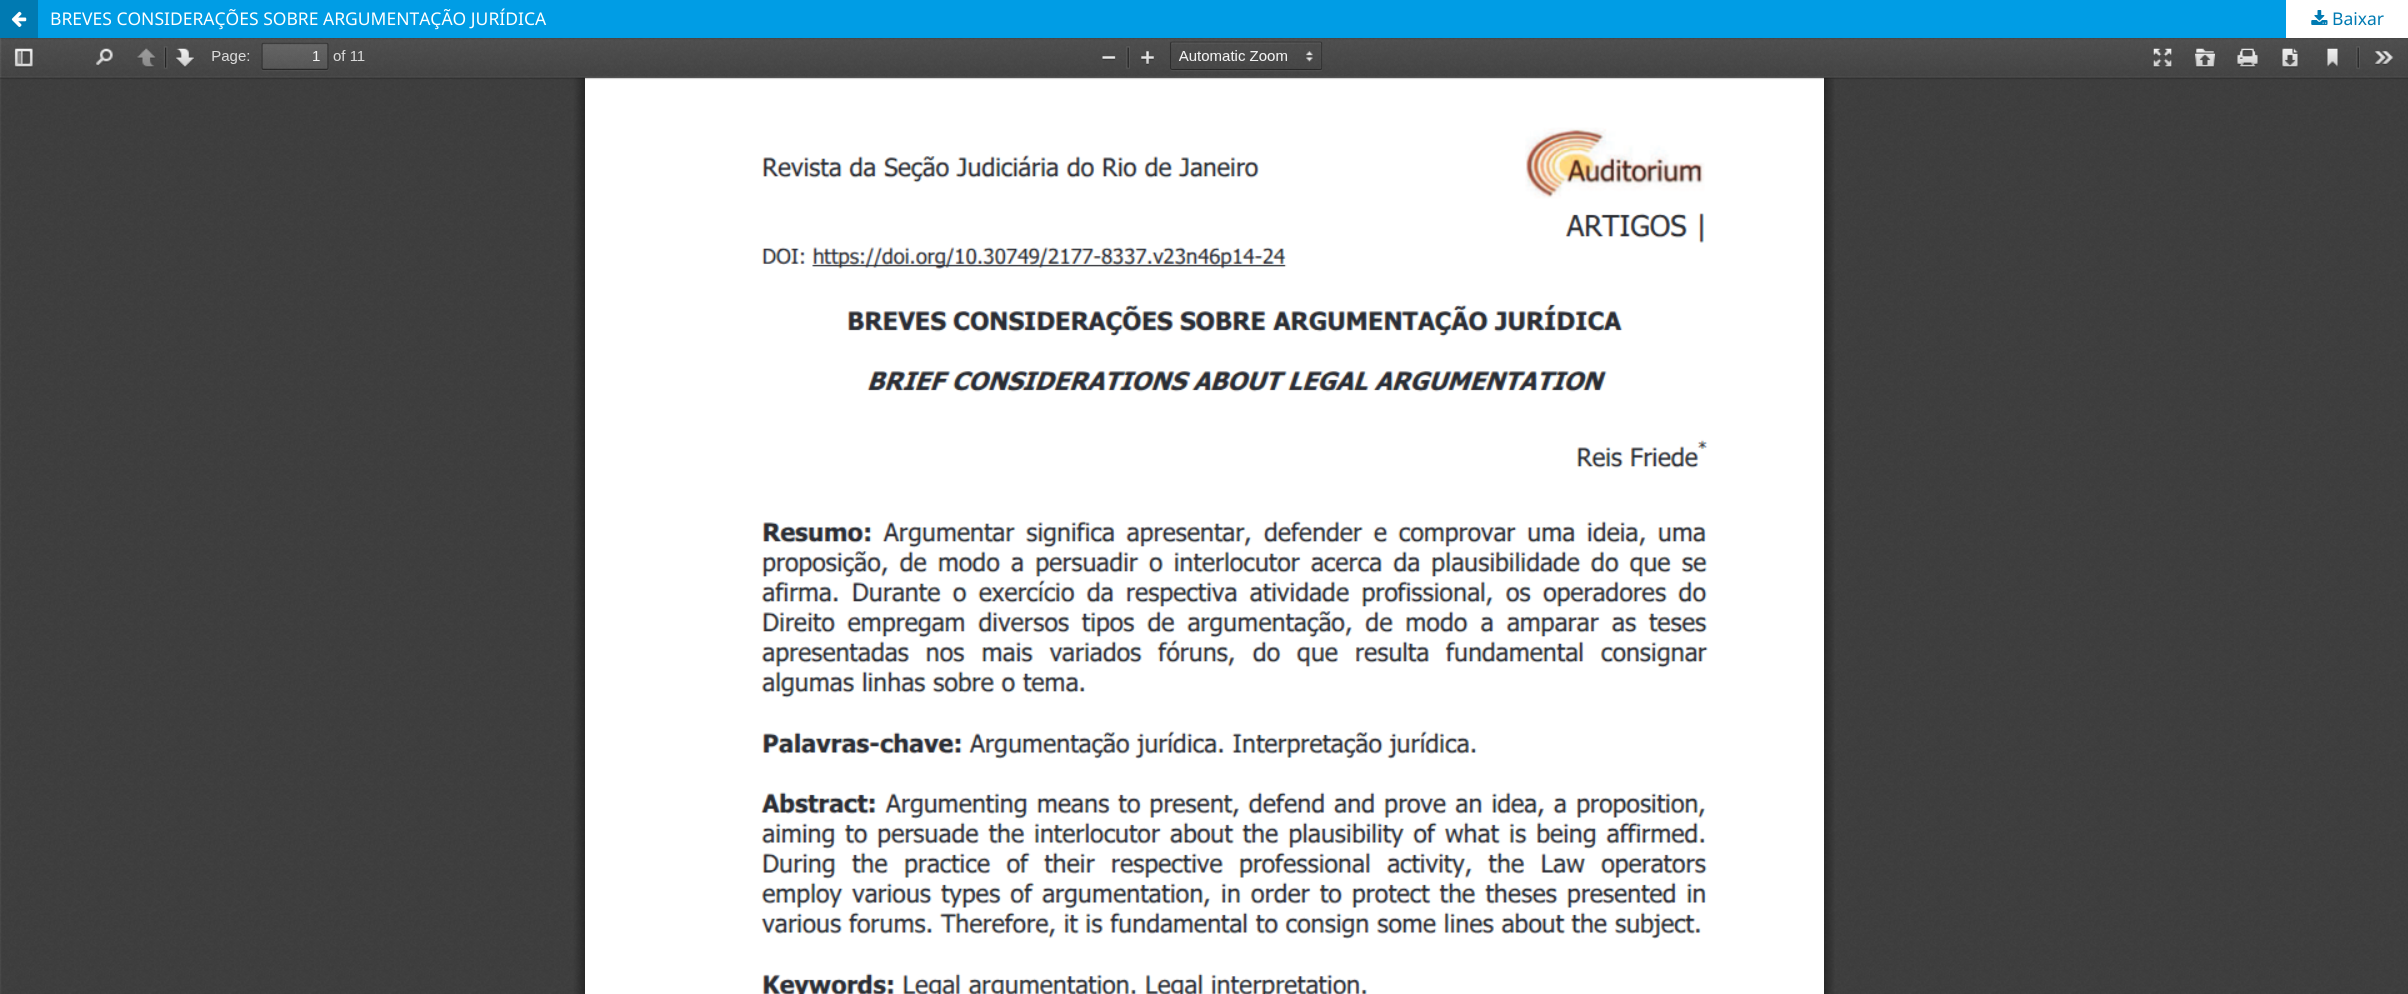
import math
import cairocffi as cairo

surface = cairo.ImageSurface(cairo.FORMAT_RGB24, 2408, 994)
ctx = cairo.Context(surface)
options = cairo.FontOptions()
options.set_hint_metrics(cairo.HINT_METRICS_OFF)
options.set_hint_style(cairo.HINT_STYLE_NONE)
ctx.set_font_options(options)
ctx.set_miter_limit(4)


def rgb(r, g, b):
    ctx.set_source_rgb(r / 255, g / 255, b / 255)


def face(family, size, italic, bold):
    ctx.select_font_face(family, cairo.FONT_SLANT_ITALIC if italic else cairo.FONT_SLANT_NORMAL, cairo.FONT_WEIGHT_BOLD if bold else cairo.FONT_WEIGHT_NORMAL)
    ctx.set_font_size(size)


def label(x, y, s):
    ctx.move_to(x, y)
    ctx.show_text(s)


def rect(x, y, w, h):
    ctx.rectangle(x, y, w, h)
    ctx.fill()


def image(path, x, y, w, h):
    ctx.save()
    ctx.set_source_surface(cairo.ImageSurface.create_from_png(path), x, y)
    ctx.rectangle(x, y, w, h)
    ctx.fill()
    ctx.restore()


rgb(255, 255, 255)
ctx.paint()
rgb(0, 157, 229)
rect(38, 0, 2248, 38)
rgb(0, 122, 178)
rect(0, 0, 38, 38)
image('image0.png', 11, 11, 16, 16)
face('Noto Sans', 17.5, 0, 0)
rgb(255, 255, 255)
label(50, 25, 'BREVES CONSIDERAÇÕES SOBRE ARGUMENTAÇÃO JURÍDICA')
image('image1.png', 2311, 10, 17, 15)
rgb(0, 122, 178)
label(2332, 25, 'Baixar')
image('image2.png', 0, 38, 2408, 956)
surface.write_to_png('render.png')
